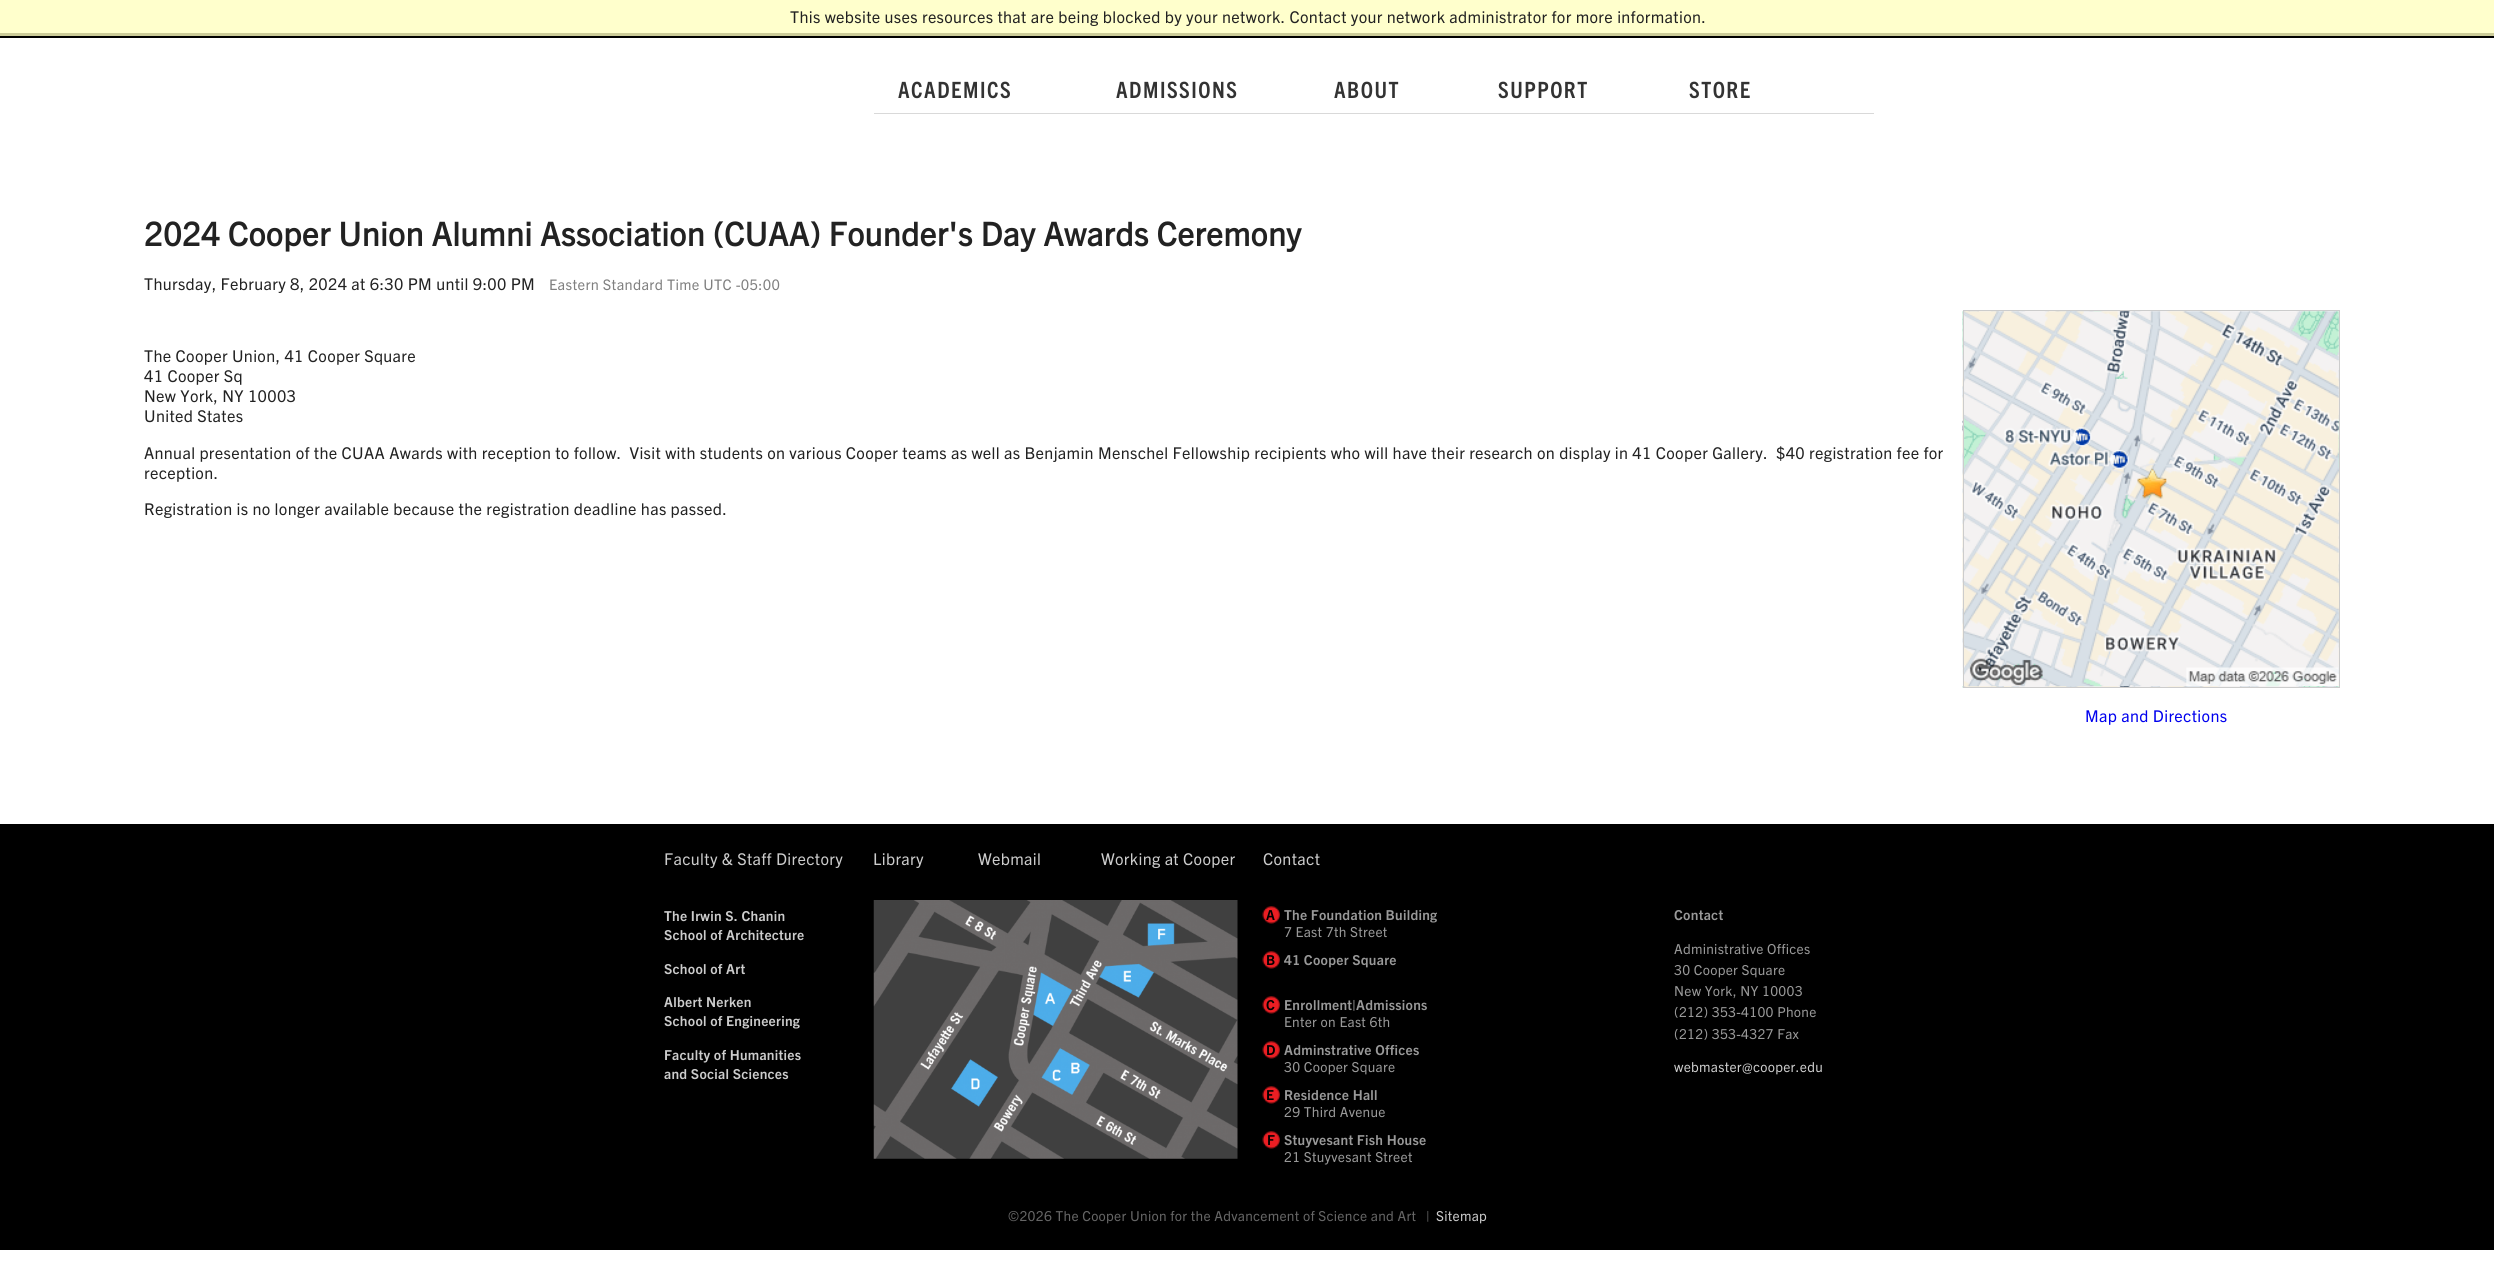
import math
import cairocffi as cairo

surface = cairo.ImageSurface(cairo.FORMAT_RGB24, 2494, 1281)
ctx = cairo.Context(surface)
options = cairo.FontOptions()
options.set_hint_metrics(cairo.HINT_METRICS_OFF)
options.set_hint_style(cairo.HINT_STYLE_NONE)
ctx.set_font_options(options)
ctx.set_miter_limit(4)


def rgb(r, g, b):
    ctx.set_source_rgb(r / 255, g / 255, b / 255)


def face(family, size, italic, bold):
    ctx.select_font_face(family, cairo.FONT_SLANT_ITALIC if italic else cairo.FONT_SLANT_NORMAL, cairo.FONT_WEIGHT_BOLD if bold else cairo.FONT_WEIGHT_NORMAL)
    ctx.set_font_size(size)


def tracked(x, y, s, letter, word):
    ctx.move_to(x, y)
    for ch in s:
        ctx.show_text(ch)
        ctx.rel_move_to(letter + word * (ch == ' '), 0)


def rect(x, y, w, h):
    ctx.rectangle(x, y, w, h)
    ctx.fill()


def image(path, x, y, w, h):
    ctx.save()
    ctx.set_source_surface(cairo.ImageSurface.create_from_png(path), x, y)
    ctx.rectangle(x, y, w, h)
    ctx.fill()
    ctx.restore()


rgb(255, 255, 255)
ctx.paint()
rgb(255, 255, 204)
rect(0, 0, 2494, 33)
rgb(204, 204, 153)
rect(0, 33, 2494, 3)
face('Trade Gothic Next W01', 16.25, 0, 0)
rgb(34, 34, 34)
tracked(790, 23, 'This website uses resources that are being blocked by your network. Contact your network administrator for more information.', 0.33, 0)
rgb(0, 0, 0)
rect(0, 36, 2494, 2)
rgb(217, 217, 217)
rect(874, 113, 1000, 1)
face('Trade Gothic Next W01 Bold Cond', 22.5, 0, 1)
rgb(51, 51, 51)
tracked(898, 98, 'ACADEMICS', 1.5, 0)
tracked(1116, 98, 'ADMISSIONS', 1.5, 0)
tracked(1334, 98, 'ABOUT', 1.5, 0)
tracked(1498, 98, 'SUPPORT', 1.5, 0)
tracked(1689, 98, 'STORE', 1.5, 0)
face('Trade Gothic Next W01', 32.5, 0, 1)
rgb(34, 34, 34)
tracked(144, 246, '2024 Cooper Union Alumni Association (CUAA) Founder\'s Day Awards Ceremony', 0.33, 0)
face('Trade Gothic Next W01', 16.25, 0, 0)
tracked(144, 290, 'Thursday, February 8, 2024 at 6:30 PM until 9:00 PM', 0.33, 0)
face('Trade Gothic Next W01', 14.6, 0, 0)
rgb(128, 128, 128)
tracked(549, 290, 'Eastern Standard Time UTC -05:00', 0.33, 0)
face('Trade Gothic Next W01', 16.25, 0, 0)
rgb(34, 34, 34)
tracked(144, 362, 'The Cooper Union, 41 Cooper Square', 0.33, 0)
tracked(144, 382, '41 Cooper Sq', 0.33, 0)
tracked(144, 402, 'New York, NY 10003', 0.33, 0)
tracked(144, 422, 'United States', 0.33, 0)
tracked(144, 459, 'Annual presentation of the CUAA Awards with reception to follow.  Visit with students on various Cooper teams as well as Benjamin Menschel Fellowship recipients who will have their research on display in 41 Cooper Gallery.  $40 registration fee for', 0.33, 0)
tracked(144, 479, 'reception.', 0.33, 0)
tracked(144, 515, 'Registration is no longer available because the registration deadline has passed.', 0.33, 0)
image('image0.png', 1962, 310, 377, 378)
ctx.rectangle(1963.5, 310.5, 376, 377)
rgb(204, 204, 204)
ctx.set_line_width(1)
ctx.stroke()
rgb(0, 0, 238)
tracked(2085, 722, 'Map and Directions', 0.33, 0)
rgb(0, 0, 0)
rect(0, 824, 2494, 426)
rgb(204, 204, 204)
tracked(664, 865, 'Faculty & Staff Directory', 0.33, 0)
tracked(873, 865, 'Library', 0.33, 0)
tracked(978, 865, 'Webmail', 0.33, 0)
tracked(1101, 865, 'Working at Cooper', 0.33, 0)
tracked(1263, 865, 'Contact', 0.33, 0)
face('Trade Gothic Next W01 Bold', 13.75, 0, 1)
tracked(664, 921, 'The Irwin S. Chanin', 0.28, 0)
tracked(664, 940, 'School of Architecture', 0.28, 0)
tracked(664, 974, 'School of Art', 0.28, 0)
tracked(664, 1007, 'Albert Nerken', 0.28, 0)
tracked(664, 1026, 'School of Engineering', 0.28, 0)
tracked(664, 1060, 'Faculty of Humanities', 0.28, 0)
tracked(664, 1079, 'and Social Sciences', 0.28, 0)
image('image1.png', 873, 900, 365, 259)
image('image2.png', 1262, 906, 18, 18)
rgb(0, 0, 0)
tracked(1266, 920, 'A', 0.28, 0)
rgb(153, 153, 153)
tracked(1284, 920, 'The Foundation Building', 0.28, 0)
face('Trade Gothic Next W01', 13.75, 0, 0)
tracked(1284, 937, '7 East 7th Street', 0.28, 0)
image('image2.png', 1262, 951, 18, 18)
face('Trade Gothic Next W01 Bold', 13.75, 0, 1)
rgb(0, 0, 0)
tracked(1266, 965, 'B', 0.28, 0)
rgb(153, 153, 153)
tracked(1284, 965, '41 Cooper Square', 0.28, 0)
image('image2.png', 1262, 996, 18, 18)
rgb(0, 0, 0)
tracked(1266, 1010, 'C', 0.28, 0)
rgb(153, 153, 153)
tracked(1284, 1010, 'Enrollment|Admissions', 0.28, 0)
face('Trade Gothic Next W01', 13.75, 0, 0)
tracked(1284, 1027, 'Enter on East 6th', 0.28, 0)
image('image2.png', 1262, 1041, 18, 18)
face('Trade Gothic Next W01 Bold', 13.75, 0, 1)
rgb(0, 0, 0)
tracked(1266, 1055, 'D', 0.28, 0)
rgb(153, 153, 153)
tracked(1284, 1055, 'Adminstrative Offices', 0.28, 0)
face('Trade Gothic Next W01', 13.75, 0, 0)
tracked(1284, 1072, '30 Cooper Square', 0.28, 0)
image('image2.png', 1262, 1086, 18, 18)
face('Trade Gothic Next W01 Bold', 13.75, 0, 1)
rgb(0, 0, 0)
tracked(1266, 1100, 'E', 0.28, 0)
rgb(153, 153, 153)
tracked(1284, 1100, 'Residence Hall', 0.28, 0)
face('Trade Gothic Next W01', 13.75, 0, 0)
tracked(1284, 1117, '29 Third Avenue', 0.28, 0)
image('image2.png', 1262, 1131, 18, 18)
face('Trade Gothic Next W01 Bold', 13.75, 0, 1)
rgb(0, 0, 0)
tracked(1267, 1145, 'F', 0.28, 0)
rgb(153, 153, 153)
tracked(1284, 1145, 'Stuyvesant Fish House', 0.28, 0)
face('Trade Gothic Next W01', 13.75, 0, 0)
tracked(1284, 1162, '21 Stuyvesant Street', 0.28, 0)
face('Trade Gothic Next W01 Bold', 13.75, 0, 1)
tracked(1674, 920, 'Contact', 0.28, 0)
face('Trade Gothic Next W01', 13.75, 0, 0)
tracked(1674, 954, 'Administrative Offices', 0.28, 0)
tracked(1674, 975, '30 Cooper Square', 0.28, 0)
tracked(1674, 996, 'New York, NY 10003', 0.28, 0)
tracked(1674, 1017, '(212) 353-4100 Phone', 0.28, 0)
tracked(1674, 1039, '(212) 353-4327 Fax', 0.28, 0)
rgb(204, 204, 204)
tracked(1674, 1072, 'webmaster@cooper.edu', 0.28, 0)
rgb(102, 102, 102)
tracked(1008, 1221, '©2026 The Cooper Union for the Advancement of Science and Art', 0.28, 0)
tracked(1426, 1221, '|', 0.28, 0)
rgb(204, 204, 204)
tracked(1436, 1221, 'Sitemap', 0.28, 0)
surface.write_to_png('render.png')
